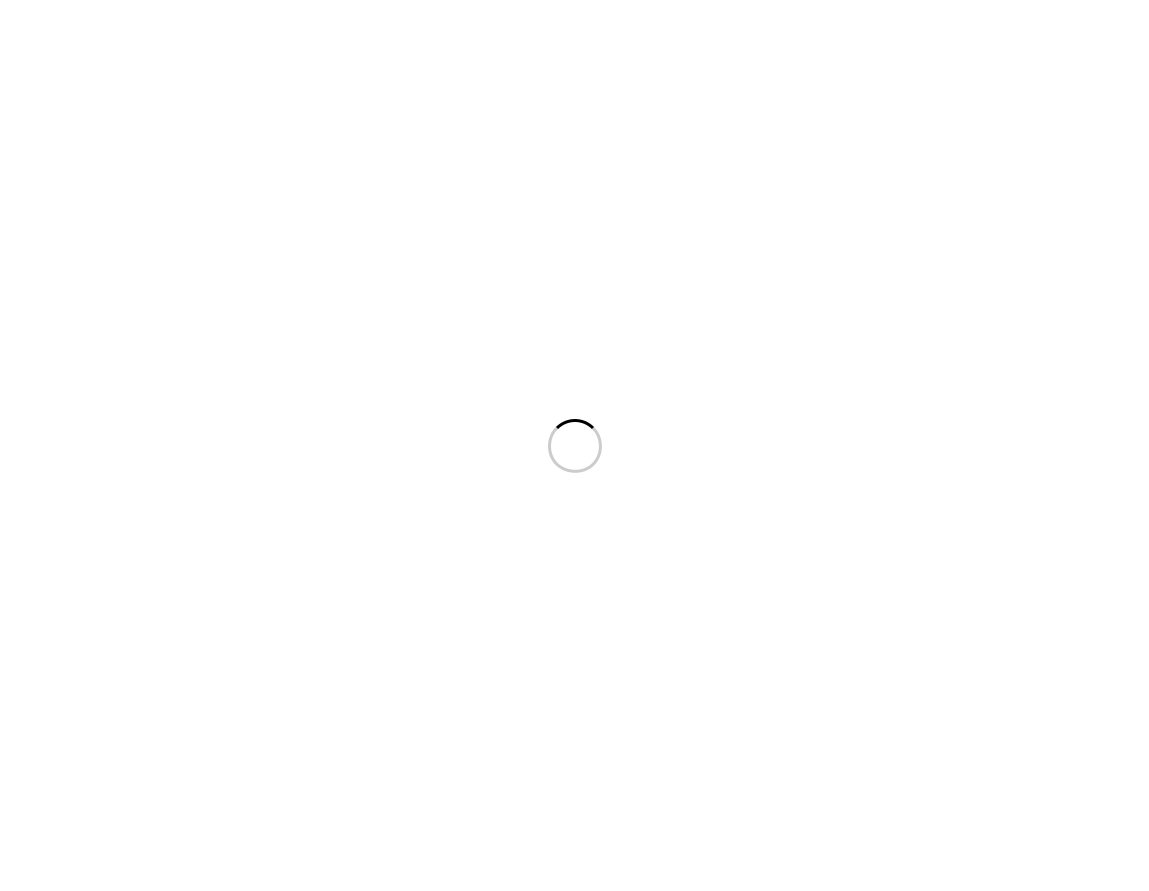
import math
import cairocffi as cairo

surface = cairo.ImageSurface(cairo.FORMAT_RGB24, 1149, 891)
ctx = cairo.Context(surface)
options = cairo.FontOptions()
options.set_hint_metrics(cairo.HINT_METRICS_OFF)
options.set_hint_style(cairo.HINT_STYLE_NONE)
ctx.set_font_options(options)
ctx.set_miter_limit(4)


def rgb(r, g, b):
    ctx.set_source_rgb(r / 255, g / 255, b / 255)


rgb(255, 255, 255)
ctx.paint()
ctx.new_path()
ctx.move_to(557, 428)
ctx.curve_to(567, 418, 583, 418, 593, 428)
rgb(0, 0, 0)
ctx.set_line_width(3)
ctx.stroke()
ctx.new_path()
ctx.move_to(593, 428)
ctx.curve_to(599, 434, 601.5, 442.5, 600, 451)
ctx.curve_to(594, 481, 549.5, 476.5, 549.5, 446)
ctx.curve_to(549.5, 439.5, 552, 432.5, 557, 428)
ctx.set_source_rgba(0, 0, 0, 0.2)
ctx.stroke()
surface.write_to_png('render.png')
